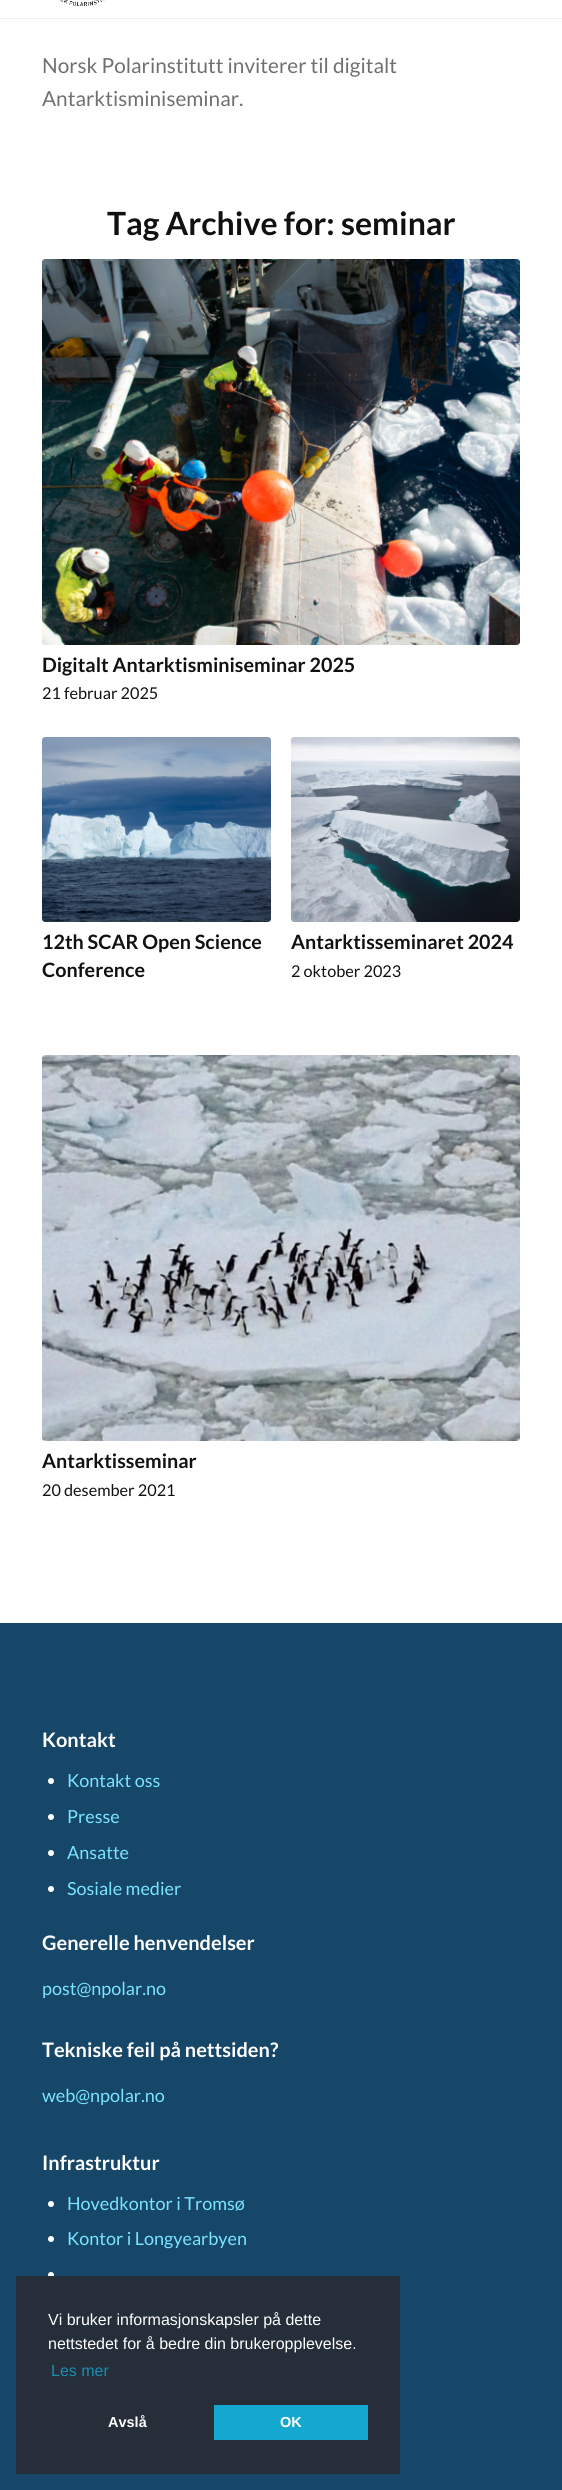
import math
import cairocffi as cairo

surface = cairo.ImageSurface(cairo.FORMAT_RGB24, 562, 2490)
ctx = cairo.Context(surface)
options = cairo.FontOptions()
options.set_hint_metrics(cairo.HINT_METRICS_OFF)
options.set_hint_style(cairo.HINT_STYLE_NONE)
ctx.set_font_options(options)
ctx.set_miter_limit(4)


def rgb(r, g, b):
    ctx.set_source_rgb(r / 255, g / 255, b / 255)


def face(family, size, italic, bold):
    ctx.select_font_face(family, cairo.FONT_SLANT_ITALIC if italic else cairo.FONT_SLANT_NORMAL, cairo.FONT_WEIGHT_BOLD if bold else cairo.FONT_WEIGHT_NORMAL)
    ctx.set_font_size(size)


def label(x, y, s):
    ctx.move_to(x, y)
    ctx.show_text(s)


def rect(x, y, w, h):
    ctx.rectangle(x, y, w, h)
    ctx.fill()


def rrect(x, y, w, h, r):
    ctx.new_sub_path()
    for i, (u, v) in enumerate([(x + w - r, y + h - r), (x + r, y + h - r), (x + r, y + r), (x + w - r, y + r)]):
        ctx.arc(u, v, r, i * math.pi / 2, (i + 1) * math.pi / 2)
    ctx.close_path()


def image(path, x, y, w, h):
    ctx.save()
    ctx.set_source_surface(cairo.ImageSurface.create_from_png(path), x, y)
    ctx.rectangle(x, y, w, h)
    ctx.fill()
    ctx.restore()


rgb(255, 255, 255)
ctx.paint()
rgb(239, 239, 239)
rect(0, 18, 562, 1)
image('image0.png', 60, 0, 45, 6)
face('Lato', 20.75, 0, 0)
rgb(112, 112, 112)
label(42, 73, 'Norsk Polarinstitutt inviterer til digitalt')
label(42, 106, 'Antarktisminiseminar.')
face('Lato', 32, 0, 1)
rgb(17, 17, 17)
label(107, 235, 'Tag Archive for: seminar')
rgb(248, 248, 248)
rrect(42, 259, 478, 386, 3)
ctx.fill()
image('image1.png', 42, 259, 478, 386)
face('Lato', 19.75, 0, 1)
rgb(17, 17, 17)
label(42, 672, 'Digitalt Antarktisminiseminar 2025')
face('Lato', 16.25, 0, 0)
label(42, 699, '21 februar 2025')
rgb(248, 248, 248)
rrect(42, 737, 229, 185, 3)
ctx.fill()
image('image2.png', 42, 737, 229, 185)
face('Lato', 19.75, 0, 1)
rgb(17, 17, 17)
label(42, 949, '12th SCAR Open Science')
label(42, 977, 'Conference')
rgb(248, 248, 248)
rrect(291, 737, 229, 185, 3)
ctx.fill()
image('image3.png', 291, 737, 229, 185)
rgb(17, 17, 17)
label(291, 949, 'Antarktisseminaret 2024')
face('Lato', 16.25, 0, 0)
label(291, 977, '2 oktober 2023')
rgb(248, 248, 248)
rrect(42, 1055, 478, 386, 3)
ctx.fill()
image('image4.png', 42, 1055, 478, 386)
face('Lato', 19.75, 0, 1)
rgb(17, 17, 17)
label(42, 1468, 'Antarktisseminar')
face('Lato', 16.25, 0, 0)
label(42, 1496, '20 desember 2021')
rgb(22, 70, 104)
rect(0, 1623, 562, 867)
face('Lato', 20, 0, 1)
rgb(255, 255, 255)
label(42, 1747, 'Kontakt')
ctx.new_path()
ctx.arc(51, 1781, 3, 0, 2 * math.pi)
ctx.fill()
face('Lato', 18, 0, 0)
rgb(122, 228, 255)
label(67, 1787, 'Kontakt oss')
rgb(255, 255, 255)
ctx.new_path()
ctx.arc(51, 1817, 3, 0, 2 * math.pi)
ctx.fill()
rgb(122, 228, 255)
label(67, 1823, 'Presse')
rgb(255, 255, 255)
ctx.new_path()
ctx.arc(51, 1853, 3, 0, 2 * math.pi)
ctx.fill()
rgb(122, 228, 255)
label(67, 1859, 'Ansatte')
rgb(255, 255, 255)
ctx.new_path()
ctx.arc(51, 1889, 3, 0, 2 * math.pi)
ctx.fill()
rgb(122, 228, 255)
label(67, 1895, 'Sosiale medier')
face('Lato', 20, 0, 1)
rgb(255, 255, 255)
label(42, 1950, 'Generelle henvendelser')
face('Lato', 18, 0, 0)
rgb(122, 228, 255)
label(42, 1995, 'post@npolar.no')
face('Lato', 20, 0, 1)
rgb(255, 255, 255)
label(42, 2057, 'Tekniske feil på nettsiden?')
face('Lato', 18, 0, 0)
rgb(122, 228, 255)
label(42, 2102, 'web@npolar.no')
face('Lato', 20, 0, 1)
rgb(255, 255, 255)
label(42, 2170, 'Infrastruktur')
ctx.new_path()
ctx.arc(51, 2204, 3, 0, 2 * math.pi)
ctx.fill()
face('Lato', 18, 0, 0)
rgb(122, 228, 255)
label(67, 2210, 'Hovedkontor i Tromsø')
rgb(255, 255, 255)
ctx.new_path()
ctx.arc(51, 2239, 3, 0, 2 * math.pi)
ctx.fill()
rgb(122, 228, 255)
label(67, 2245, 'Kontor i Longyearbyen')
rgb(255, 255, 255)
ctx.new_path()
ctx.arc(51, 2275, 3, 0, 2 * math.pi)
ctx.fill()
rgb(37, 46, 57)
rect(16, 2276, 384, 198)
face('Liberation Sans', 16, 0, 0)
rgb(255, 255, 255)
label(48, 2325, 'Vi bruker informasjonskapsler på dette')
label(48, 2349, 'nettstedet for å bedre din brukeropplevelse.')
rgb(23, 143, 178)
label(51, 2376, 'Les mer')
face('Liberation Sans', 14.5, 0, 1)
rgb(255, 255, 255)
label(108, 2427, 'Avslå')
rgb(20, 167, 208)
rect(214, 2405, 154, 35)
rgb(255, 255, 255)
label(280, 2427, 'OK')
surface.write_to_png('render.png')
